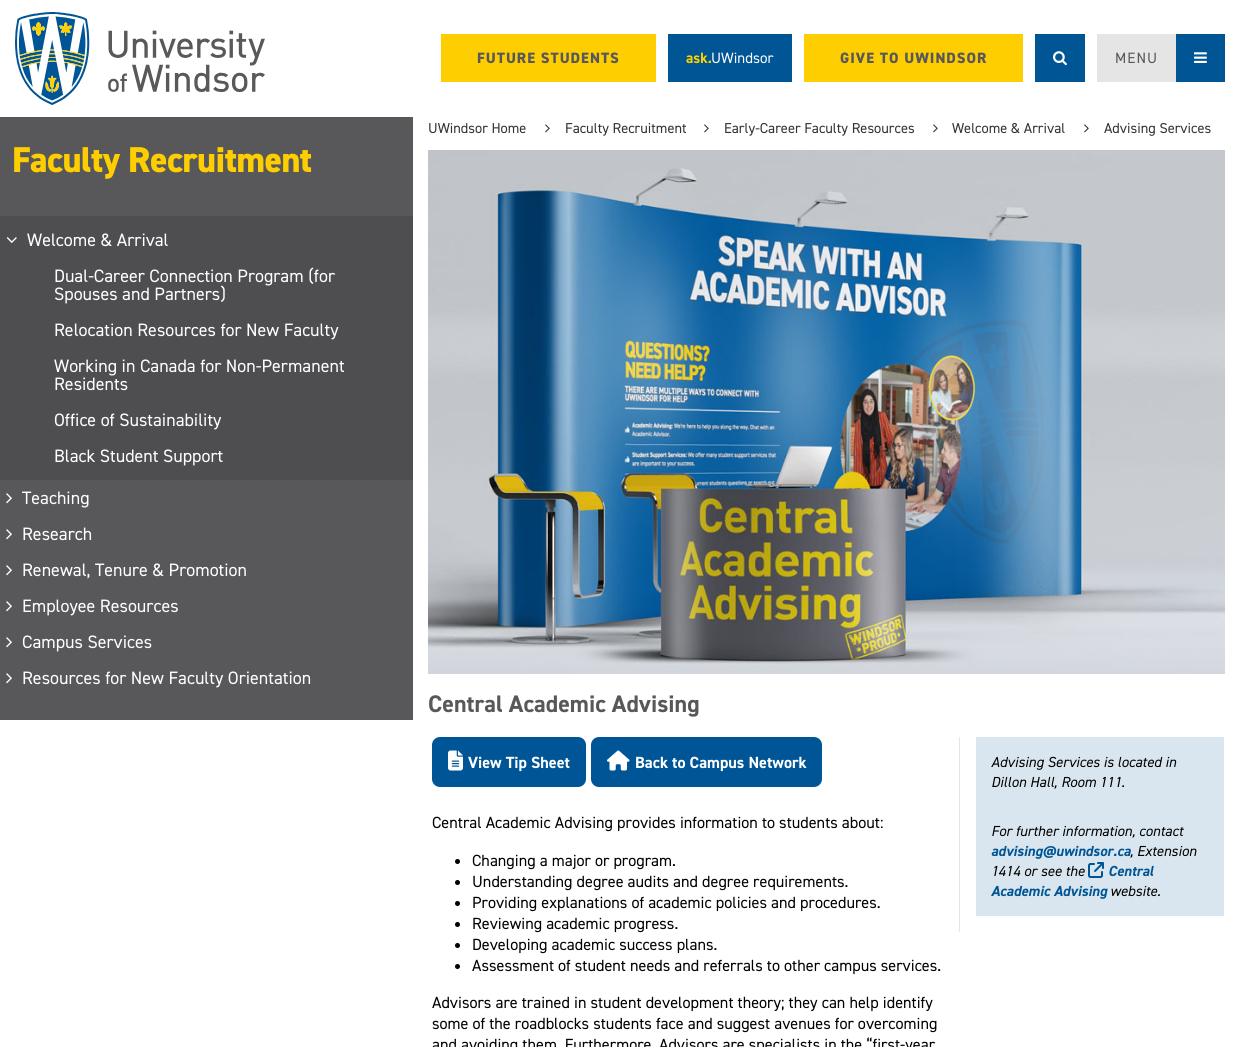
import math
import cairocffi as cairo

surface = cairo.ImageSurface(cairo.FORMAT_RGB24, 1240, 1047)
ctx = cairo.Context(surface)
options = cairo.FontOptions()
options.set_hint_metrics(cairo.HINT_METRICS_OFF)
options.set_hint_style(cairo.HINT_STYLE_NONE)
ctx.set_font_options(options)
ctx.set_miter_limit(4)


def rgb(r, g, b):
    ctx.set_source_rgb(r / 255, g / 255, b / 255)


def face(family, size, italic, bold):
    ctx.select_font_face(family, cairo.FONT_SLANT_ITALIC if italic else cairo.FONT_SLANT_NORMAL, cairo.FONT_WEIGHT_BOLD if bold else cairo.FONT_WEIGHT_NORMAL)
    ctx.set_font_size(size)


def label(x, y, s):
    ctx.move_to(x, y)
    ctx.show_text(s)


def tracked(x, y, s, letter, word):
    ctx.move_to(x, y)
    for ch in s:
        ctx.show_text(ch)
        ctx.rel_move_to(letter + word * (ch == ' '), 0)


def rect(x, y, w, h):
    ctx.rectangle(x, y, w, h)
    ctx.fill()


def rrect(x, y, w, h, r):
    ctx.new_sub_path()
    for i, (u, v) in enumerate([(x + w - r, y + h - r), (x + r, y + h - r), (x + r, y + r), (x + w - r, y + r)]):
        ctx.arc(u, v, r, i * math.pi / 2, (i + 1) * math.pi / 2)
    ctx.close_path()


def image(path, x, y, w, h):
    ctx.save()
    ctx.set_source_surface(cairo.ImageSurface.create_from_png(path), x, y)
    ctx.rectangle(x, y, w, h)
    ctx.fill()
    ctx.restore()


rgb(255, 255, 255)
ctx.paint()
image('image0.png', 15, 12, 250, 93)
rgb(255, 206, 0)
rect(441, 34, 215, 48)
face('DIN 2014 ExtraBold', 15, 0, 0)
rgb(88, 88, 91)
tracked(477, 63, 'FUTURE STUDENTS', 1, 0)
rgb(0, 85, 149)
rect(668, 34, 124, 48)
face('DIN 2014', 15, 0, 1)
rgb(255, 206, 0)
label(686, 63, 'ask.')
face('DIN 2014', 15, 0, 0)
rgb(255, 255, 255)
label(711, 63, 'UWindsor')
rgb(255, 206, 0)
rect(804, 34, 219, 48)
face('DIN 2014 ExtraBold', 15, 0, 0)
rgb(88, 88, 91)
tracked(840, 63, 'GIVE TO UWINDSOR', 1, 0)
rgb(0, 85, 149)
rect(1035, 34, 50, 48)
image('image1.png', 1053, 51, 14, 15)
rgb(229, 229, 229)
rect(1097, 34, 79, 48)
face('DIN 2014', 15, 0, 0)
rgb(88, 88, 91)
tracked(1115, 63, 'MENU', 1, 0)
rgb(0, 85, 149)
rect(1176, 34, 49, 48)
image('image2.png', 1194, 52, 13, 11)
rgb(88, 88, 91)
rect(0, 117, 413, 603)
face('DIN 2014 ExtraBold', 36, 0, 0)
rgb(255, 206, 0)
tracked(12, 172, 'Faculty Recruitment', -0.5, 0)
rgb(78, 78, 81)
rect(0, 216, 413, 264)
image('image3.png', 6, 237, 11, 6)
face('DIN 2014', 18, 0, 0)
rgb(255, 255, 255)
label(27, 246, 'Welcome & Arrival')
label(54, 282, 'Dual-Career Connection Program (for')
label(54, 300, 'Spouses and Partners)')
label(54, 336, 'Relocation Resources for New Faculty')
label(54, 372, 'Working in Canada for Non-Permanent')
label(54, 390, 'Residents')
label(54, 426, 'Office of Sustainability')
label(54, 462, 'Black Student Support')
image('image4.png', 6, 493, 6, 11)
label(22, 504, 'Teaching')
image('image4.png', 6, 529, 6, 11)
label(22, 540, 'Research')
image('image4.png', 6, 565, 6, 11)
label(22, 576, 'Renewal, Tenure & Promotion')
image('image4.png', 6, 601, 6, 11)
label(22, 612, 'Employee Resources')
image('image4.png', 6, 637, 6, 11)
label(22, 648, 'Campus Services')
image('image4.png', 6, 673, 6, 11)
label(22, 684, 'Resources for New Faculty Orientation')
face('DIN 2014', 14.4, 0, 0)
rgb(51, 51, 51)
label(428, 133, 'UWindsor Home')
image('image5.png', 545, 124, 5, 9)
label(565, 133, 'Faculty Recruitment')
image('image5.png', 704, 124, 5, 9)
label(724, 133, 'Early-Career Faculty Resources')
image('image5.png', 933, 124, 5, 9)
label(952, 133, 'Welcome & Arrival')
image('image5.png', 1084, 124, 5, 9)
label(1104, 133, 'Advising Services')
image('image6.png', 428, 150, 797, 524)
face('DIN 2014', 24, 0, 1)
rgb(88, 88, 91)
label(428, 712, 'Central Academic Advising')
rgb(0, 85, 150)
rrect(432, 737, 154, 50, 8)
ctx.fill()
image('image7.png', 448, 750, 15, 21)
face('DIN 2014', 16.2, 0, 1)
rgb(255, 255, 255)
label(468, 768, 'View Tip Sheet')
rgb(0, 85, 150)
rrect(591, 737, 231, 50, 8)
ctx.fill()
image('image8.png', 607, 750, 23, 21)
rgb(255, 255, 255)
label(635, 768, 'Back to Campus Network')
face('DIN 2014', 16.2, 0, 0)
rgb(0, 0, 0)
label(432, 828, 'Central Academic Advising provides information to students about:')
ctx.new_path()
ctx.arc(457.5, 861.5, 2.5, 0, 2 * math.pi)
ctx.fill()
label(472, 866, 'Changing a major or program.')
ctx.new_path()
ctx.arc(457.5, 882.5, 2.5, 0, 2 * math.pi)
ctx.fill()
label(472, 887, 'Understanding degree audits and degree requirements.')
ctx.new_path()
ctx.arc(457.5, 903.5, 2.5, 0, 2 * math.pi)
ctx.fill()
label(472, 908, 'Providing explanations of academic policies and procedures.')
ctx.new_path()
ctx.arc(457.5, 924.5, 2.5, 0, 2 * math.pi)
ctx.fill()
label(472, 929, 'Reviewing academic progress.')
ctx.new_path()
ctx.arc(457.5, 945.5, 2.5, 0, 2 * math.pi)
ctx.fill()
label(472, 950, 'Developing academic success plans.')
ctx.new_path()
ctx.arc(457.5, 966.5, 2.5, 0, 2 * math.pi)
ctx.fill()
label(472, 971, 'Assessment of student needs and referrals to other campus services.')
label(432, 1008, 'Advisors are trained in student development theory; they can help identify')
label(432, 1029, 'some of the roadblocks students face and suggest avenues for overcoming')
label(432, 1050, 'and avoiding them. Furthermore, Advisors are specialists in the “first-year')
rgb(230, 230, 230)
rect(959, 737, 1, 195)
rgb(217, 230, 239)
rect(976, 737, 248, 179)
face('DIN 2014', 14.6, 1, 0)
rgb(0, 0, 0)
label(991, 767, 'Advising Services is located in')
label(991, 787, 'Dillon Hall, Room 111.')
label(991, 836, 'For further information, contact')
face('DIN 2014', 14.6, 1, 1)
rgb(0, 85, 149)
label(991, 856, 'advising@uwindsor.ca')
face('DIN 2014', 14.6, 1, 0)
rgb(0, 0, 0)
label(1130, 856, ', Extension')
image('image9.png', 1088, 862, 16, 16)
face('DIN 2014', 14.6, 1, 1)
rgb(0, 85, 149)
label(1108, 876, 'Central')
label(991, 896, 'Academic Advising')
face('DIN 2014', 14.6, 1, 0)
rgb(0, 0, 0)
label(991, 876, '1414 or see the')
label(1110, 896, 'website.')
surface.write_to_png('render.png')
